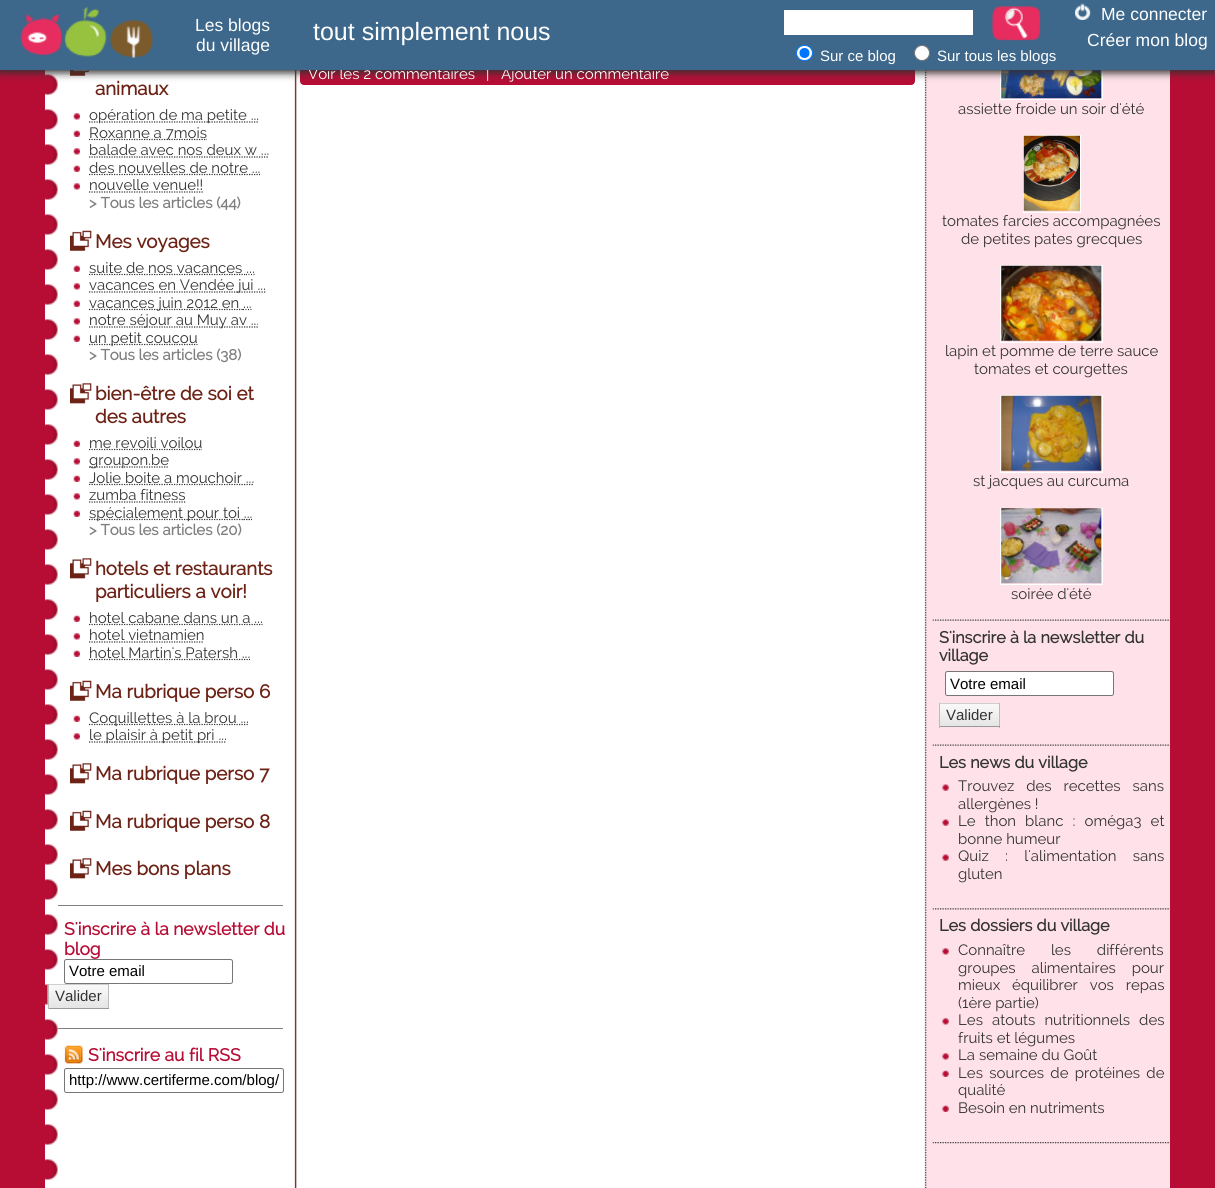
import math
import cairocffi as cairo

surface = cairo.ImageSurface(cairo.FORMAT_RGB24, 1215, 1188)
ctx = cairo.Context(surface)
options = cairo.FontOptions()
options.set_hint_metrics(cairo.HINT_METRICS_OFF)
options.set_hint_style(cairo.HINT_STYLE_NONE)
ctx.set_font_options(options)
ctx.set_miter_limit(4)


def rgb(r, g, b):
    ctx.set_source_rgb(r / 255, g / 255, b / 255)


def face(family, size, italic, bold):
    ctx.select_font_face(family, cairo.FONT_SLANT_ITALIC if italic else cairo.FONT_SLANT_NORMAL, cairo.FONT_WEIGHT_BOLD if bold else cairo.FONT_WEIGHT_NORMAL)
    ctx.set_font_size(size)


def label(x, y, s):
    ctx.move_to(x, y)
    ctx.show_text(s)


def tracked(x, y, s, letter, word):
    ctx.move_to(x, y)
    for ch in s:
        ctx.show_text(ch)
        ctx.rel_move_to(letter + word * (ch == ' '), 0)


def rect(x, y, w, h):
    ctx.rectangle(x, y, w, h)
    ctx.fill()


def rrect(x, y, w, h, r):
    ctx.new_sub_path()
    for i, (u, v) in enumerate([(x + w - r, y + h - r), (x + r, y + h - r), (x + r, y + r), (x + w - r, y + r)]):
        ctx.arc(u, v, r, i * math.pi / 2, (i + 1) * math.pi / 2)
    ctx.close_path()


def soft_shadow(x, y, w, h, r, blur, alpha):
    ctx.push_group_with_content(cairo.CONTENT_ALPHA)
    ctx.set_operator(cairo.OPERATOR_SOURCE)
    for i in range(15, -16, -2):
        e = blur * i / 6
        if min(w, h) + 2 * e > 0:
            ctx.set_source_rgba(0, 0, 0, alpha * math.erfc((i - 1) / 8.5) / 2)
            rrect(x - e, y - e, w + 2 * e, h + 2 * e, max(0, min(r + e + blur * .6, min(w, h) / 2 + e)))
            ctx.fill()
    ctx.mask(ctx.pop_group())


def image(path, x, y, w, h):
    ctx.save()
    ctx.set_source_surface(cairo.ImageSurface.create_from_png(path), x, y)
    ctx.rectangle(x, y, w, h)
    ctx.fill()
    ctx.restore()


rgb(183, 13, 53)
ctx.paint()
rgb(255, 226, 233)
rect(927, 70, 243, 1118)
image('image3.png', 45, 70, 882, 1118)
rrect(300.5, -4.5, 614, 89, 3.5)
rgb(183, 13, 53)
ctx.set_line_width(1)
ctx.stroke()
rect(301, 70, 613, 14)
image('image4.png', 70, 70, 19, 6)
ctx.rectangle(1000.5, 23.5, 102, 76)
rgb(255, 255, 255)
ctx.stroke()
image('image13.png', 1001, 70, 101, 29)
rgb(51, 51, 51)
soft_shadow(0, 3, 1215, 70, 0, 4, 1)
face('Raleway', 15, 0, 0)
rgb(255, 255, 255)
label(308, 79, 'Voir les 2 commentaires')
label(486, 79, '|')
label(501, 79, 'Ajouter un commentaire')
rgb(61, 104, 139)
rect(0, 0, 1215, 70)
image('image0.png', 20, 7, 133, 51)
face('Liberation Sans', 17.5, 0, 0)
rgb(255, 255, 255)
label(195, 31, 'Les blogs')
label(196, 51, 'du village')
face('Liberation Sans', 25, 0, 0)
label(313, 40, 'tout simplement nous')
image('image1.png', 1075, 3, 16, 17)
face('Liberation Sans', 17.5, 0, 0)
label(1101, 20, 'Me connecter')
label(1087, 46, 'Créer mon blog')
rect(784, 10, 189, 25)
image('image2.png', 992, 6, 49, 35)
rrect(796.5, 45.5, 16, 15, 7.5)
ctx.fill_preserve()
rgb(0, 117, 255)
ctx.stroke()
ctx.arc(804.5, 53, 5, 0, 2 * math.pi)
ctx.fill()
face('Liberation Sans', 15, 0, 0)
rgb(255, 255, 255)
label(820, 61, 'Sur ce blog')
ctx.new_path()
ctx.arc(922, 53, 7.5, 0, 2 * math.pi)
ctx.fill_preserve()
rgb(118, 118, 118)
ctx.stroke()
rgb(255, 255, 255)
label(937, 61, 'Sur tous les blogs')
face('Raleway', 18.75, 0, 1)
rgb(109, 34, 22)
label(95, 95, 'animaux')
image('image5.png', 73, 113, 7, 7)
ctx.new_path()
ctx.move_to(89, 122)
ctx.line_to(259, 122)
rgb(51, 51, 51)
ctx.set_line_width(1.2)
ctx.set_dash([1.25, 1.25])
ctx.stroke()
face('Raleway', 15, 0, 0)
label(89, 120, 'opération de ma petite ...')
image('image6.png', 73, 130, 7, 7)
ctx.new_path()
ctx.move_to(89, 139.5)
ctx.line_to(207, 139.5)
ctx.stroke()
label(89, 138, 'Roxanne a 7mois')
image('image5.png', 73, 148, 7, 7)
label(89, 155, 'balade avec nos deux w ...')
ctx.new_path()
ctx.move_to(89, 157)
ctx.line_to(269, 157)
ctx.stroke()
image('image6.png', 73, 165, 7, 7)
ctx.new_path()
ctx.move_to(89, 174.5)
ctx.line_to(260, 174.5)
ctx.stroke()
label(89, 173, 'des nouvelles de notre ...')
image('image5.png', 73, 183, 7, 7)
label(89, 190, 'nouvelle venue!!')
ctx.new_path()
ctx.move_to(89, 192)
ctx.line_to(203, 192)
ctx.stroke()
face('Raleway', 15, 0, 1)
rgb(127, 127, 127)
label(89, 208, '> Tous les articles (44)')
image('image7.png', 70, 230, 22, 21)
face('Raleway', 18.75, 0, 1)
rgb(109, 34, 22)
label(95, 248, 'Mes voyages')
image('image6.png', 73, 265, 7, 7)
ctx.new_path()
ctx.move_to(89, 274.5)
ctx.line_to(246, 274.5)
rgb(51, 51, 51)
ctx.stroke()
face('Raleway', 15, 0, 0)
label(89, 273, 'suite de nos vacances ...')
ctx.new_path()
ctx.move_to(246, 274.5)
ctx.line_to(247, 274.5)
ctx.move_to(248.5, 274.5)
ctx.line_to(249.5, 274.5)
ctx.move_to(251, 274.5)
ctx.line_to(252, 274.5)
ctx.move_to(253.5, 274.5)
ctx.line_to(254.5, 274.5)
ctx.set_dash([])
ctx.stroke()
image('image5.png', 73, 283, 7, 7)
ctx.new_path()
ctx.move_to(89, 292)
ctx.line_to(265.5, 292)
ctx.set_dash([1.25, 1.25])
ctx.stroke()
label(89, 290, 'vacances en Vendée jui ...')
image('image6.png', 73, 300, 7, 7)
ctx.new_path()
ctx.move_to(89, 309.5)
ctx.line_to(243, 309.5)
ctx.stroke()
label(89, 308, 'vacances juin 2012 en ...')
ctx.new_path()
ctx.move_to(243, 309.5)
ctx.line_to(244, 309.5)
ctx.move_to(245.5, 309.5)
ctx.line_to(246.5, 309.5)
ctx.move_to(248, 309.5)
ctx.line_to(249, 309.5)
ctx.move_to(250.5, 309.5)
ctx.line_to(251.5, 309.5)
ctx.set_dash([])
ctx.stroke()
image('image5.png', 73, 318, 7, 7)
ctx.new_path()
ctx.move_to(89, 327)
ctx.line_to(259, 327)
ctx.set_dash([1.25, 1.25])
ctx.stroke()
label(89, 325, 'notre séjour au Muy av ...')
image('image6.png', 73, 335, 7, 7)
ctx.new_path()
ctx.move_to(89, 344.5)
ctx.line_to(197.5, 344.5)
ctx.stroke()
label(89, 343, 'un petit coucou')
face('Raleway', 15, 0, 1)
rgb(127, 127, 127)
label(89, 360, '> Tous les articles (38)')
image('image8.png', 70, 383, 22, 21)
face('Raleway', 18.75, 0, 1)
rgb(109, 34, 22)
label(95, 400, 'bien-être de soi et')
label(95, 423, 'des autres')
image('image6.png', 73, 440, 7, 7)
ctx.new_path()
ctx.move_to(89, 449.5)
ctx.line_to(202, 449.5)
rgb(51, 51, 51)
ctx.stroke()
face('Raleway', 15, 0, 0)
label(89, 448, 'me revoili voilou')
image('image5.png', 73, 458, 7, 7)
ctx.new_path()
ctx.move_to(89, 467)
ctx.line_to(169, 467)
ctx.stroke()
label(89, 465, 'groupon.be')
image('image6.png', 73, 475, 7, 7)
ctx.new_path()
ctx.move_to(89, 484.5)
ctx.line_to(254, 484.5)
ctx.stroke()
label(89, 483, 'Jolie boite a mouchoir ...')
image('image5.png', 73, 493, 7, 7)
label(89, 500, 'zumba fitness')
ctx.new_path()
ctx.move_to(89, 502)
ctx.line_to(185.5, 502)
ctx.stroke()
image('image6.png', 73, 510, 7, 7)
ctx.new_path()
ctx.move_to(89, 519.5)
ctx.line_to(243.5, 519.5)
ctx.stroke()
label(89, 518, 'spécialement pour toi ...')
ctx.new_path()
ctx.move_to(243.5, 519.5)
ctx.line_to(245, 519.5)
ctx.move_to(246, 519.5)
ctx.line_to(247.5, 519.5)
ctx.move_to(248.5, 519.5)
ctx.line_to(250, 519.5)
ctx.move_to(251, 519.5)
ctx.line_to(252, 519.5)
ctx.set_dash([])
ctx.stroke()
face('Raleway', 15, 0, 1)
rgb(127, 127, 127)
label(89, 535, '> Tous les articles (20)')
image('image9.png', 70, 558, 22, 21)
face('Raleway', 18.75, 0, 1)
rgb(109, 34, 22)
label(95, 575, 'hotels et restaurants')
label(95, 598, 'particuliers a voir!')
image('image6.png', 73, 615, 7, 7)
ctx.new_path()
ctx.move_to(89, 624.5)
ctx.line_to(262.5, 624.5)
rgb(51, 51, 51)
ctx.set_dash([1.25, 1.25])
ctx.stroke()
face('Raleway', 15, 0, 0)
label(89, 623, 'hotel cabane dans un a ...')
image('image5.png', 73, 633, 7, 7)
label(89, 640, 'hotel vietnamien')
ctx.new_path()
ctx.move_to(89, 642)
ctx.line_to(204, 642)
ctx.stroke()
image('image6.png', 73, 650, 7, 7)
ctx.new_path()
ctx.move_to(89, 659.5)
ctx.line_to(250, 659.5)
ctx.stroke()
label(89, 658, 'hotel Martin\'s Patersh ...')
image('image7.png', 70, 680, 22, 21)
face('Raleway', 18.75, 0, 1)
rgb(109, 34, 22)
label(95, 698, 'Ma rubrique perso 6')
image('image6.png', 73, 715, 7, 7)
ctx.new_path()
ctx.move_to(89, 724.5)
ctx.line_to(248.5, 724.5)
rgb(51, 51, 51)
ctx.stroke()
face('Raleway', 15, 0, 0)
label(89, 723, 'Coquillettes à la brou ...')
image('image5.png', 73, 733, 7, 7)
ctx.new_path()
ctx.move_to(89, 742)
ctx.line_to(226.5, 742)
ctx.stroke()
label(89, 740, 'le plaisir à petit pri ...')
image('image9.png', 70, 763, 22, 21)
face('Raleway', 18.75, 0, 1)
rgb(109, 34, 22)
label(95, 780, 'Ma rubrique perso 7')
image('image7.png', 70, 810, 22, 21)
label(95, 828, 'Ma rubrique perso 8')
image('image9.png', 70, 858, 22, 21)
label(95, 875, 'Mes bons plans')
rgb(128, 128, 128)
rect(58, 905, 225, 1)
face('Raleway', 17.5, 0, 1)
rgb(183, 13, 53)
label(64, 935, 'S\'inscrire à la newsletter du')
label(64, 955, 'blog')
rrect(64.5, 959.5, 168, 24, 2)
rgb(118, 118, 118)
ctx.set_line_width(1)
ctx.set_dash([])
ctx.stroke()
face('Liberation Sans', 15, 0, 0)
rgb(0, 0, 0)
label(69, 976, 'Votre email')
image('image10.png', 47, 984, 61, 25)
rgb(207, 207, 207)
rect(48, 984, 61, 1)
rgb(187, 187, 187)
rect(108, 984, 1, 25)
rgb(153, 153, 153)
rect(48, 1008, 61, 1)
rgb(187, 187, 187)
rect(48, 984, 1, 25)
rgb(51, 51, 51)
label(55, 1001, 'Valider')
rgb(128, 128, 128)
rect(58, 1028, 225, 1)
image('image11.png', 64, 1045, 19, 19)
face('Raleway', 17.5, 0, 1)
rgb(183, 13, 53)
label(88, 1061, 'S\'inscrire au fil RSS')
rrect(64.5, 1068.5, 219, 24, 2)
rgb(118, 118, 118)
ctx.stroke()
face('Liberation Sans', 15, 0, 0)
rgb(0, 0, 0)
label(69, 1085, 'http://www.certiferme.com/blog/')
image('image12.png', 932, 619, 238, 2)
face('Raleway', 15, 0, 0)
rgb(51, 51, 51)
label(958, 114, 'assiette froide un soir d\'été')
ctx.rectangle(1023.5, 135.5, 57, 77)
rgb(255, 255, 255)
ctx.stroke()
image('image14.png', 1023, 135, 57, 76)
rgb(51, 51, 51)
label(942, 226, 'tomates farcies accompagnées')
label(961, 244, 'de petites pates grecques')
ctx.rectangle(1000.5, 265.5, 102, 77)
rgb(255, 255, 255)
ctx.stroke()
image('image15.png', 1001, 265, 101, 76)
rgb(51, 51, 51)
label(945, 356, 'lapin et pomme de terre sauce')
label(974, 374, 'tomates et courgettes')
ctx.rectangle(1000.5, 395.5, 102, 77)
rgb(255, 255, 255)
ctx.stroke()
image('image16.png', 1001, 395, 101, 76)
rgb(51, 51, 51)
label(973, 486, 'st jacques au curcuma')
ctx.rectangle(1000.5, 508.5, 102, 76)
rgb(255, 255, 255)
ctx.stroke()
image('image17.png', 1001, 508, 101, 76)
rgb(51, 51, 51)
label(1011, 599, 'soirée d\'été')
image('image12.png', 932, 744, 238, 2)
face('Raleway', 16.25, 0, 1)
label(939, 643, 'S\'inscrire à la newsletter du')
label(939, 661, 'village')
rgb(255, 255, 255)
rrect(945.5, 671.5, 168, 24, 2)
ctx.fill_preserve()
rgb(118, 118, 118)
ctx.stroke()
face('Liberation Sans', 15, 0, 0)
rgb(0, 0, 0)
label(950, 689, 'Votre email')
image('image18.png', 938, 703, 61, 24)
rgb(207, 207, 207)
rect(939, 703, 61, 1)
rgb(187, 187, 187)
rect(999, 703, 1, 25)
rgb(153, 153, 153)
rect(939, 726, 61, 1)
rgb(187, 187, 187)
rect(939, 703, 1, 25)
rgb(51, 51, 51)
label(946, 720, 'Valider')
image('image19.png', 932, 908, 238, 2)
face('Raleway', 16.25, 0, 1)
label(939, 768, 'Les news du village')
image('image20.png', 942, 784, 7, 7)
face('Raleway', 15, 0, 0)
tracked(958, 791, 'Trouvez des recettes sans', 0, 8)
label(958, 809, 'allergènes !')
image('image20.png', 942, 819, 7, 7)
tracked(958, 826, 'Le thon blanc : oméga3 et', 0, 5.25)
label(958, 844, 'bonne humeur')
image('image20.png', 942, 854, 7, 7)
tracked(958, 861, 'Quiz : l\'alimentation sans', 0, 12.5)
label(958, 879, 'gluten')
image('image21.png', 932, 1142, 238, 2)
face('Raleway', 16.25, 0, 1)
label(939, 931, 'Les dossiers du village')
image('image22.png', 942, 948, 7, 7)
face('Raleway', 15, 0, 0)
tracked(958, 955, 'Connaître les différents', 0, 22)
tracked(958, 973, 'groupes alimentaires pour', 0, 12)
tracked(958, 990, 'mieux équilibrer vos repas', 0, 8)
label(958, 1008, '(1ère partie)')
image('image22.png', 942, 1018, 7, 7)
tracked(958, 1025, 'Les atouts nutritionnels des', 0, 5.25)
label(958, 1043, 'fruits et légumes')
image('image22.png', 942, 1053, 7, 7)
label(958, 1060, 'La semaine du Goût')
image('image23.png', 942, 1070, 7, 7)
tracked(958, 1078, 'Les sources de protéines de', 0, 2.5)
label(958, 1095, 'qualité')
image('image23.png', 942, 1105, 7, 7)
label(958, 1113, 'Besoin en nutriments')
surface.write_to_png('render.png')
